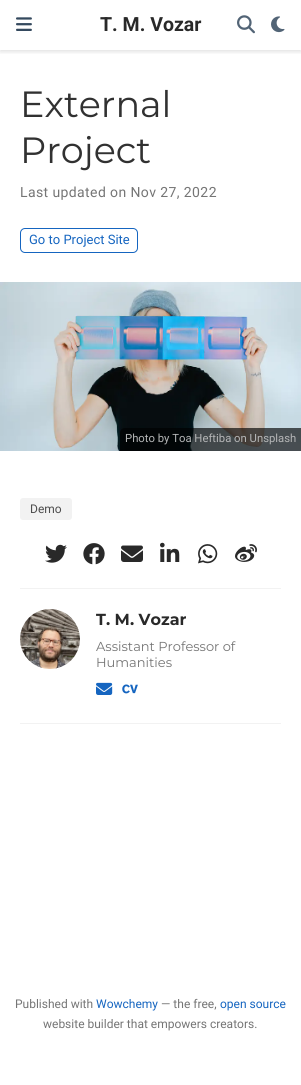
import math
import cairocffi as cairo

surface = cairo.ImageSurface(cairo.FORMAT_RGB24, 301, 1085)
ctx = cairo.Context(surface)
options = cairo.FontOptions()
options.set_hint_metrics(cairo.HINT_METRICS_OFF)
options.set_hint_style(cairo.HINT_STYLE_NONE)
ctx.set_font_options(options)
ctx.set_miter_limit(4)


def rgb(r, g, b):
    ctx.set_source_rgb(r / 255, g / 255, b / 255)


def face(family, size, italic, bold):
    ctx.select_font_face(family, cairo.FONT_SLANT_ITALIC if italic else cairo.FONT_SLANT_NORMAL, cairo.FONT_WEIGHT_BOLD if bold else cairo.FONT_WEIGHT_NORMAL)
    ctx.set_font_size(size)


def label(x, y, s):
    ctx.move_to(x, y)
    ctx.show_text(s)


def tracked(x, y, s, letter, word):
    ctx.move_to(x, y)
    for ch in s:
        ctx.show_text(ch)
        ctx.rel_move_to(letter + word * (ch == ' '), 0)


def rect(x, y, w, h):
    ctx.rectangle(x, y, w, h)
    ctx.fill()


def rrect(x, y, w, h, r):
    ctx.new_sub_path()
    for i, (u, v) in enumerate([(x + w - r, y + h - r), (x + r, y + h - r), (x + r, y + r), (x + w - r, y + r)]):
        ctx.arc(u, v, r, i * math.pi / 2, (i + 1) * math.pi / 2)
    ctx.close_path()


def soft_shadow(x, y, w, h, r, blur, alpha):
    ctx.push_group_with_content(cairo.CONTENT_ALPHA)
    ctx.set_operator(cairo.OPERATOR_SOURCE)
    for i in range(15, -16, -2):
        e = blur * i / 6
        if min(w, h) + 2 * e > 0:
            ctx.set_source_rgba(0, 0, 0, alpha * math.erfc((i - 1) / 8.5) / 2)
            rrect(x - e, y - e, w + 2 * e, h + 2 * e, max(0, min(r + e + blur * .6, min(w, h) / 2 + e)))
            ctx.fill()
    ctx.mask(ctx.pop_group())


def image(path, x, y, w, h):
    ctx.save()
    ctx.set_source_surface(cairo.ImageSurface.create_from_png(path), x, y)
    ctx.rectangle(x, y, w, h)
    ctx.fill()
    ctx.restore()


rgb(255, 255, 255)
ctx.paint()
ctx.save()
ctx.rectangle(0, 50, 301, 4)
ctx.clip()
rgb(0, 0, 0)
soft_shadow(0, 2, 301, 50, 0, 2, 0.11)
ctx.restore()
image('image0.png', 16, 17, 16, 14)
face('Roboto', 19.5, 0, 1)
rgb(41, 41, 41)
label(100, 31, 'T. M. Vozar')
image('image1.png', 237, 15, 18, 19)
image('image2.png', 271, 16, 14, 17)
face('Montserrat', 36.5, 0, 0)
rgb(49, 49, 49)
label(20, 117, 'External')
label(20, 163, 'Project')
face('Roboto', 14, 0, 0)
rgb(117, 117, 117)
tracked(20, 197, 'Last updated on Nov 27, 2022', 0.4, 0)
rrect(20.5, 228.5, 117, 24, 4.5)
rgb(21, 101, 192)
ctx.set_line_width(1)
ctx.stroke()
face('Roboto', 13, 0, 0)
label(29, 244, 'Go to Project Site')
image('image3.png', 0, 282, 301, 169)
ctx.set_source_rgba(0, 0, 0, 0.65)
ctx.new_path()
ctx.move_to(125, 428)
ctx.line_to(301, 428)
ctx.line_to(301, 451)
ctx.line_to(120, 451)
ctx.line_to(120, 433)
ctx.curve_to(120, 430, 122, 428, 125, 428)
ctx.close_path()
ctx.fill()
face('Roboto', 11.3, 0, 0)
rgb(181, 182, 183)
label(125, 442, 'Photo by Toa Heftiba on Unsplash')
rgb(242, 242, 242)
rrect(20, 498, 52, 22, 3)
ctx.fill()
face('Roboto', 12, 0, 0)
rgb(77, 77, 77)
label(30, 513, 'Demo')
image('image4.png', 45, 544, 22, 19)
image('image5.png', 83, 543, 22, 22)
image('image6.png', 121, 545, 22, 17)
image('image7.png', 160, 542, 20, 20)
image('image8.png', 198, 544, 20, 20)
image('image9.png', 235, 544, 22, 18)
rgb(242, 242, 242)
rect(20, 588, 261, 1)
image('image10.png', 20, 609, 60, 60)
face('Montserrat', 16, 0, 1)
rgb(41, 41, 41)
label(96, 625, 'T. M. Vozar')
face('Montserrat', 13, 0, 0)
rgb(117, 117, 117)
label(96, 651, 'Assistant Professor of')
label(96, 667, 'Humanities')
image('image11.png', 96, 682, 17, 13)
image('image12.png', 122, 684, 16, 10)
rgb(242, 242, 242)
rect(20, 723, 261, 1)
face('Roboto', 12, 0, 0)
rgb(117, 117, 117)
label(15, 1008, 'Published with')
rgb(21, 101, 192)
label(96, 1008, 'Wowchemy')
rgb(117, 117, 117)
label(161, 1008, '— the free,')
rgb(21, 101, 192)
label(220, 1008, 'open source')
rgb(117, 117, 117)
label(43, 1028, 'website builder that empowers creators.')
surface.write_to_png('render.png')
